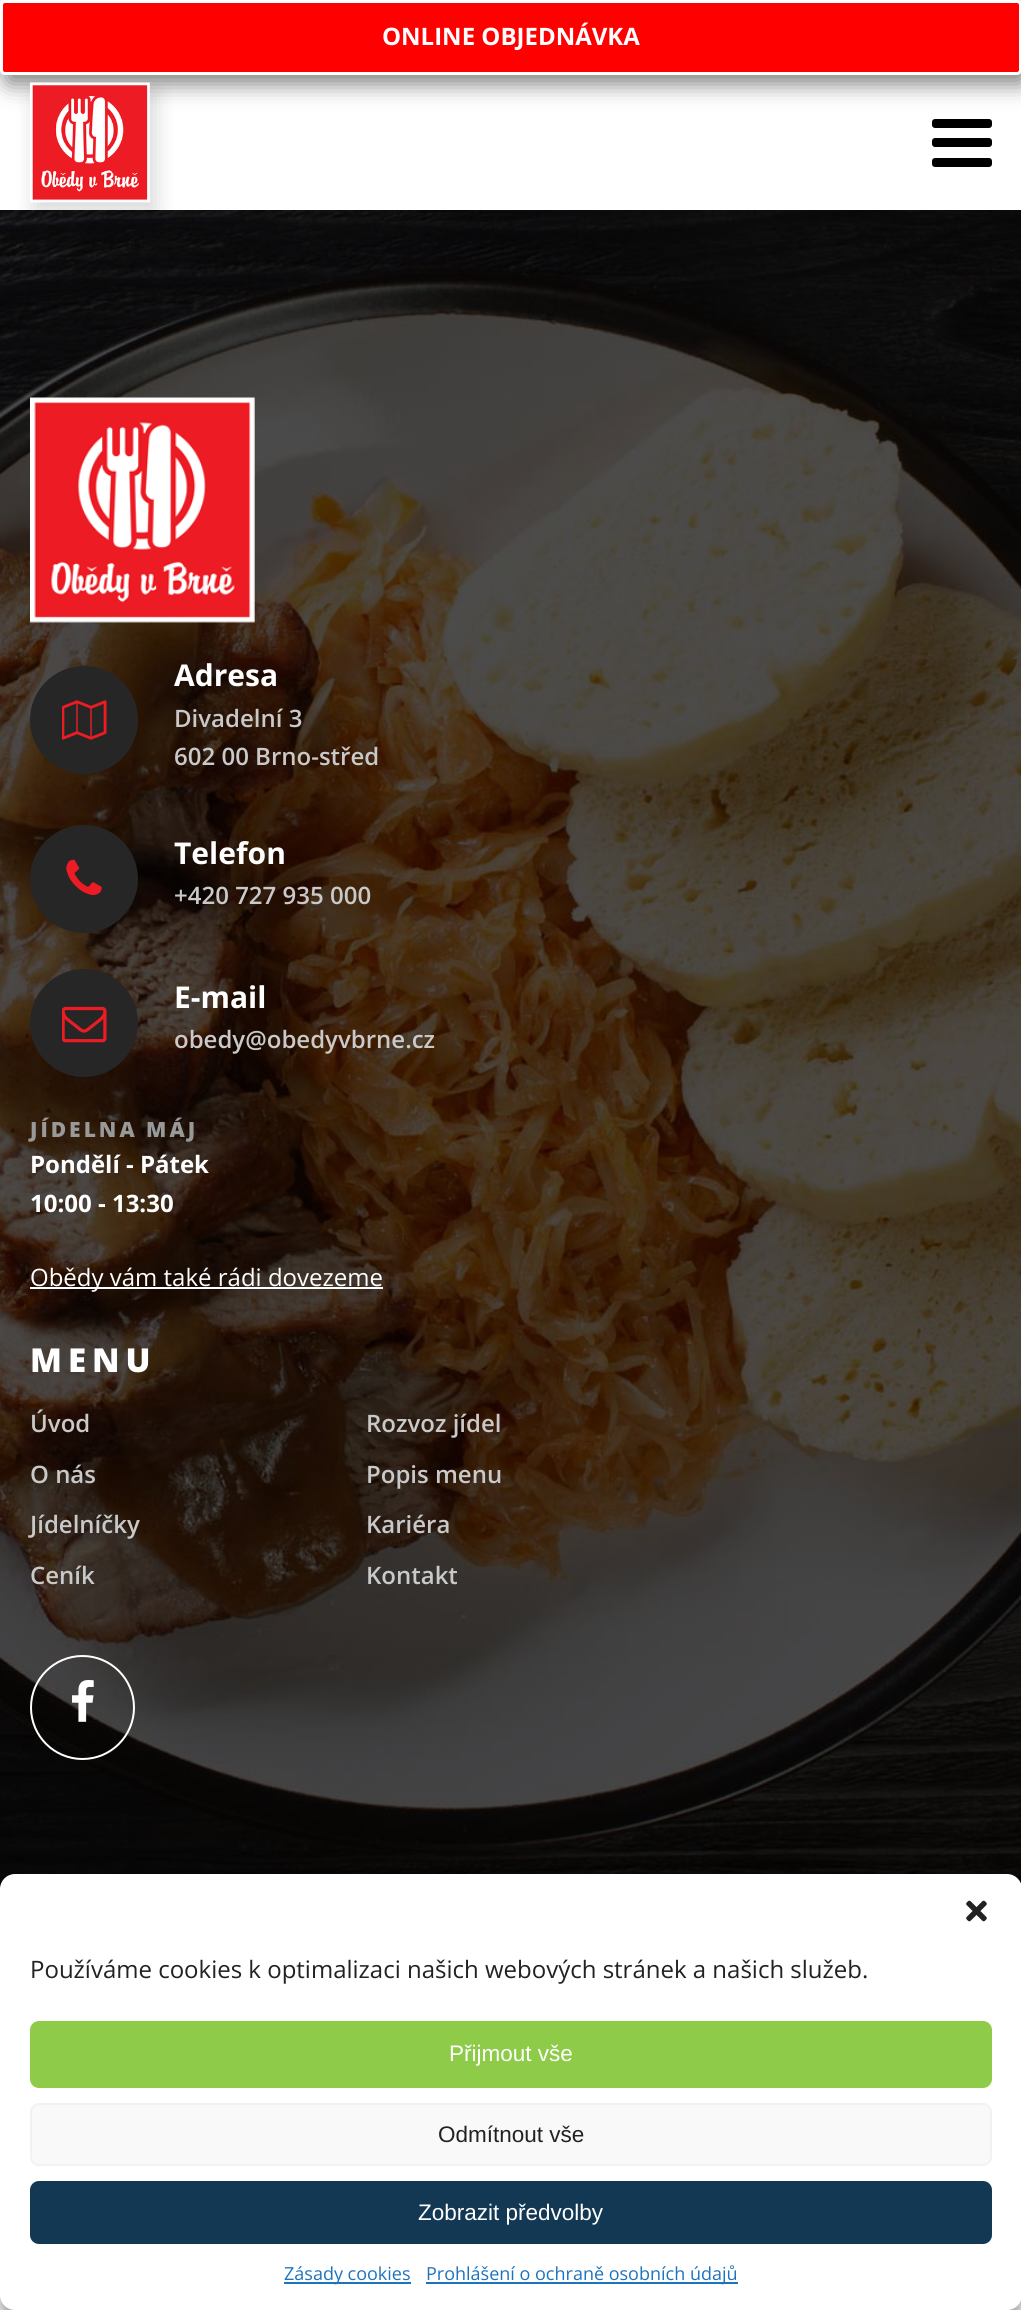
import math
import cairocffi as cairo

surface = cairo.ImageSurface(cairo.FORMAT_RGB24, 1021, 2310)
ctx = cairo.Context(surface)
options = cairo.FontOptions()
options.set_hint_metrics(cairo.HINT_METRICS_OFF)
options.set_hint_style(cairo.HINT_STYLE_NONE)
ctx.set_font_options(options)
ctx.set_miter_limit(4)


def rgb(r, g, b):
    ctx.set_source_rgb(r / 255, g / 255, b / 255)


def face(family, size, italic, bold):
    ctx.select_font_face(family, cairo.FONT_SLANT_ITALIC if italic else cairo.FONT_SLANT_NORMAL, cairo.FONT_WEIGHT_BOLD if bold else cairo.FONT_WEIGHT_NORMAL)
    ctx.set_font_size(size)


def label(x, y, s):
    ctx.move_to(x, y)
    ctx.show_text(s)


def tracked(x, y, s, letter, word):
    ctx.move_to(x, y)
    for ch in s:
        ctx.show_text(ch)
        ctx.rel_move_to(letter + word * (ch == ' '), 0)


def rect(x, y, w, h):
    ctx.rectangle(x, y, w, h)
    ctx.fill()


def rrect(x, y, w, h, r):
    ctx.new_sub_path()
    for i, (u, v) in enumerate([(x + w - r, y + h - r), (x + r, y + h - r), (x + r, y + r), (x + w - r, y + r)]):
        ctx.arc(u, v, r, i * math.pi / 2, (i + 1) * math.pi / 2)
    ctx.close_path()


def soft_shadow(x, y, w, h, r, blur, alpha):
    ctx.push_group_with_content(cairo.CONTENT_ALPHA)
    ctx.set_operator(cairo.OPERATOR_SOURCE)
    for i in range(15, -16, -2):
        e = blur * i / 6
        if min(w, h) + 2 * e > 0:
            ctx.set_source_rgba(0, 0, 0, alpha * math.erfc((i - 1) / 8.5) / 2)
            rrect(x - e, y - e, w + 2 * e, h + 2 * e, max(0, min(r + e + blur * .6, min(w, h) / 2 + e)))
            ctx.fill()
    ctx.mask(ctx.pop_group())


def image(path, x, y, w, h):
    ctx.save()
    ctx.set_source_surface(cairo.ImageSurface.create_from_png(path), x, y)
    ctx.rectangle(x, y, w, h)
    ctx.fill()
    ctx.restore()


rgb(255, 255, 255)
ctx.paint()
rgb(0, 0, 0)
soft_shadow(5, 9, 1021, 75, 5, 11, 0.5)
rgb(255, 0, 0)
rrect(1.5, 1.5, 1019, 72, 3.5)
ctx.fill_preserve()
rgb(255, 255, 255)
ctx.set_line_width(3)
ctx.stroke()
face('Open Sans', 24, 0, 1)
label(382, 45, 'ONLINE OBJEDNÁVKA')
image('image1.png', 0, 210, 1021, 1679)
rgb(0, 0, 0)
soft_shadow(35, 92, 120, 120, 0, 11, 0.16)
image('image0.png', 30, 82, 120, 121)
rgb(0, 0, 0)
rrect(932, 119, 60, 9, 3)
ctx.fill()
rrect(932, 138, 60, 9, 3)
ctx.fill()
rrect(932, 158, 60, 9, 3)
ctx.fill()
image('image2.png', 30, 397, 225, 226)
rgb(38, 38, 38)
ctx.arc(84, 720, 53, 0, 2 * math.pi)
ctx.fill_preserve()
ctx.set_line_width(2)
ctx.stroke()
image('image3.png', 62, 700, 45, 40)
face('Open Sans', 30, 0, 1)
rgb(255, 255, 255)
label(174, 686, 'Adresa')
face('Open Sans SemiBold', 24, 0, 0)
rgb(201, 201, 201)
label(174, 727, 'Divadelní 3')
label(174, 765, '602 00 Brno-střed')
rgb(38, 38, 38)
ctx.new_path()
ctx.arc(84, 879, 53, 0, 2 * math.pi)
ctx.fill_preserve()
ctx.stroke()
image('image4.png', 66, 859, 36, 37)
face('Open Sans', 30, 0, 1)
rgb(255, 255, 255)
label(174, 864, 'Telefon')
face('Open Sans SemiBold', 24, 0, 0)
rgb(201, 201, 201)
label(174, 904, '+420 727 935 000')
rgb(38, 38, 38)
ctx.new_path()
ctx.arc(84, 1023, 53, 0, 2 * math.pi)
ctx.fill_preserve()
ctx.stroke()
image('image5.png', 62, 1006, 45, 37)
face('Open Sans', 30, 0, 1)
rgb(255, 255, 255)
label(174, 1008, 'E-mail')
face('Open Sans SemiBold', 24, 0, 0)
rgb(201, 201, 201)
label(174, 1048, 'obedy@obedyvbrne.cz')
face('Open Sans ExtraBold', 21, 0, 0)
rgb(153, 153, 153)
tracked(30, 1137, 'JÍDELNA MÁJ', 3, 0)
face('Open Sans', 24, 0, 1)
rgb(255, 255, 255)
label(30, 1173, 'Pondělí - Pátek')
label(30, 1212, '10:00 - 13:30')
rect(30, 1287, 353, 2)
face('Open Sans', 24, 0, 0)
label(30, 1286, 'Obědy vám také rádi dovezeme')
face('Open Sans ExtraBold', 33, 0, 0)
tracked(30, 1372, 'MENU', 6, 0)
face('Open Sans SemiBold', 24, 0, 0)
rgb(201, 201, 201)
label(30, 1432, 'Úvod')
label(30, 1483, 'O nás')
label(30, 1533, 'Jídelníčky')
label(30, 1584, 'Ceník')
label(366, 1432, 'Rozvoz jídel')
label(366, 1483, 'Popis menu')
label(366, 1533, 'Kariéra')
label(366, 1584, 'Kontakt')
ctx.new_path()
ctx.arc(82.5, 1707.5, 51.5, 0, 2 * math.pi)
rgb(255, 255, 255)
ctx.stroke()
image('image6.png', 72, 1680, 22, 42)
rgb(0, 0, 0)
soft_shadow(0, 1883, 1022, 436, 15, 4.5, 0.23)
soft_shadow(0, 1889, 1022, 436, 15, 15, 0.19)
rgb(255, 255, 255)
rrect(0, 1874, 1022, 436, 15)
ctx.fill()
image('image7.png', 966, 1900, 21, 22)
face('Open Sans', 24, 0, 0)
rgb(34, 34, 34)
label(30, 1978, 'Používáme cookies k optimalizaci našich webových stránek a našich služeb.')
rgb(142, 203, 73)
rrect(31, 2022, 960, 65, 8)
ctx.fill_preserve()
ctx.stroke()
face('Liberation Sans', 22.5, 0, 0)
rgb(255, 255, 255)
label(449, 2061, 'Přijmout vše')
rgb(249, 249, 249)
rrect(31, 2104, 960, 61, 8)
ctx.fill_preserve()
rgb(242, 242, 242)
ctx.stroke()
rgb(34, 34, 34)
label(438, 2142, 'Odmítnout vše')
rgb(19, 56, 83)
rrect(31, 2182, 960, 61, 8)
ctx.fill_preserve()
ctx.stroke()
rgb(255, 255, 255)
label(418, 2220, 'Zobrazit předvolby')
rgb(30, 115, 190)
rect(284, 2282, 127, 2)
face('Open Sans', 18, 0, 0)
label(284, 2280, 'Zásady cookies')
rect(426, 2282, 312, 2)
label(426, 2280, 'Prohlášení o ochraně osobních údajů')
surface.write_to_png('render.png')
